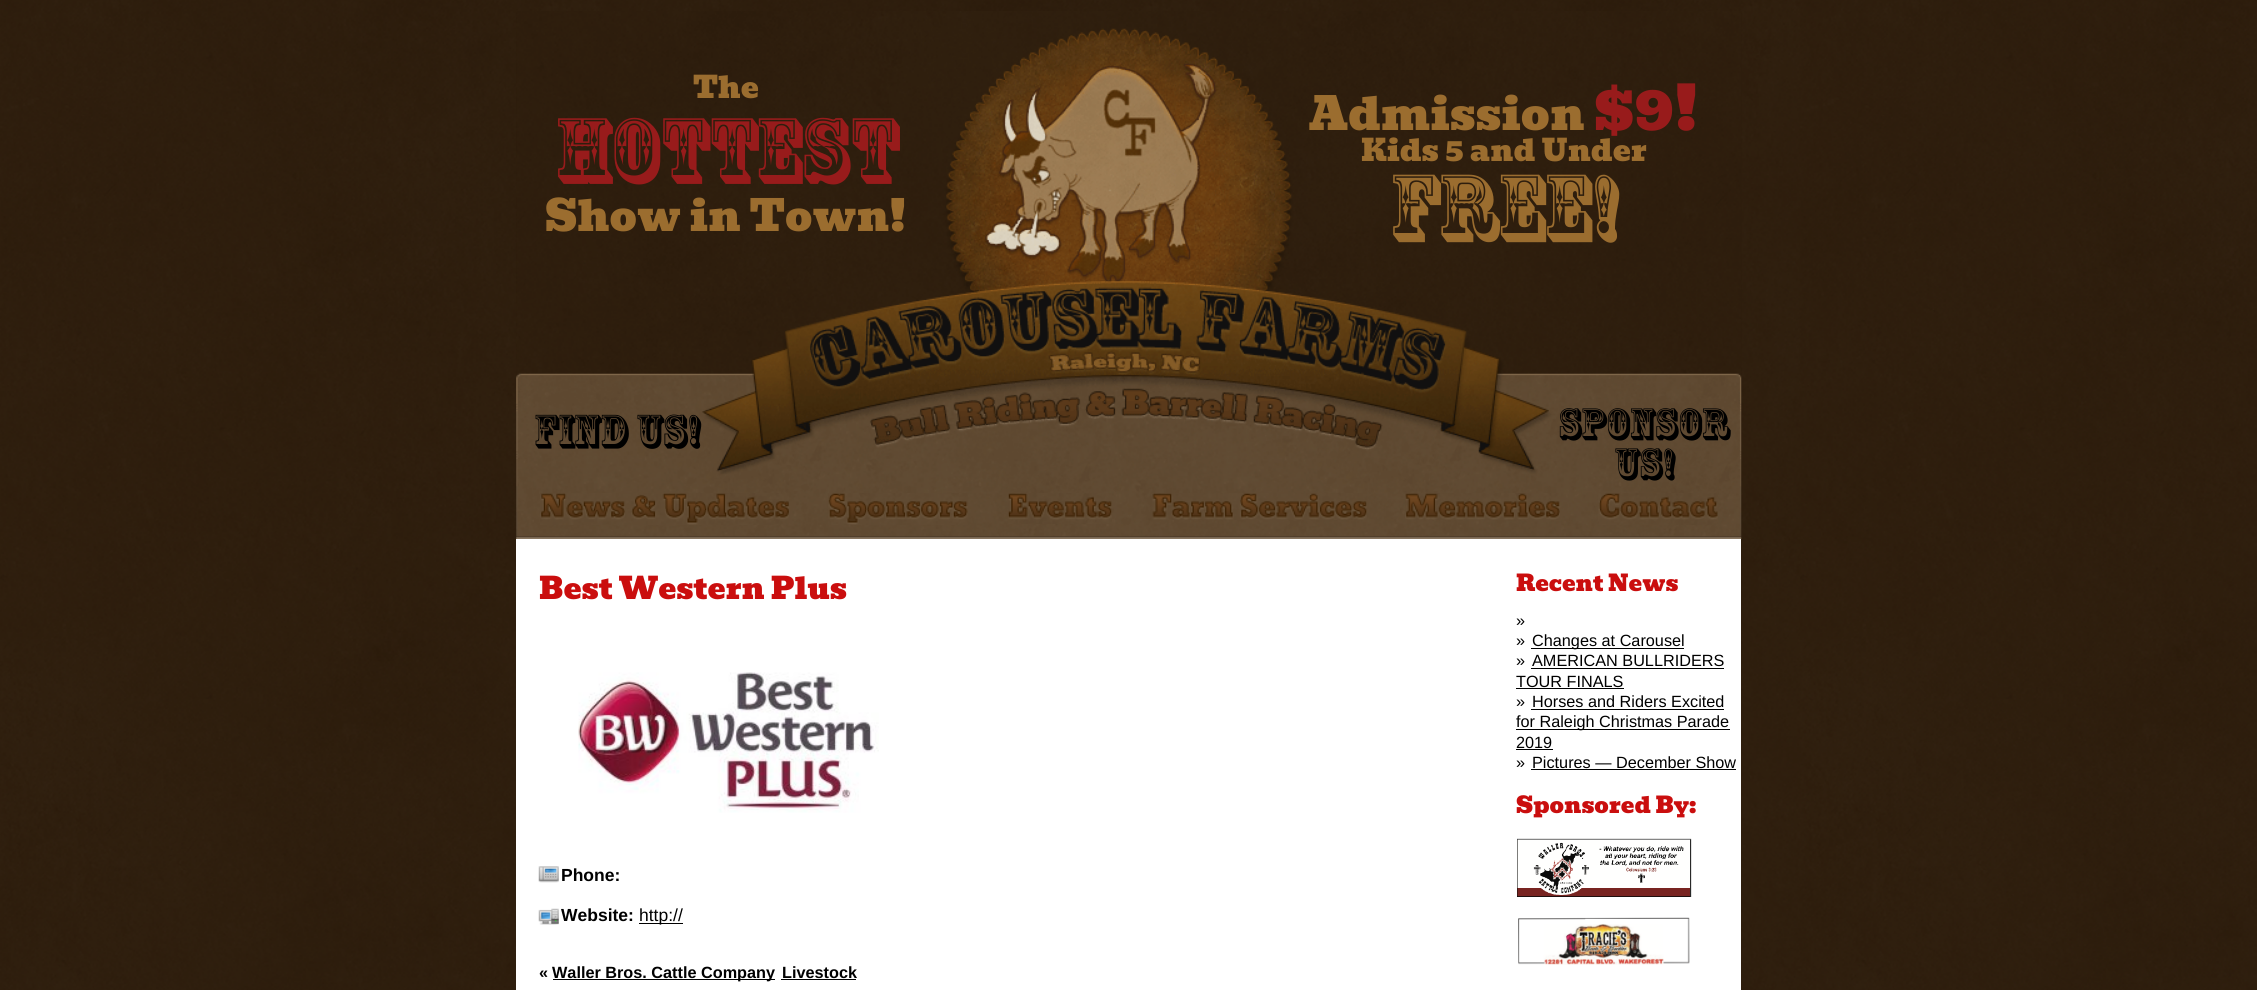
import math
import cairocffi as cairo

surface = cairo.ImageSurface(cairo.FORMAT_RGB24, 2257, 990)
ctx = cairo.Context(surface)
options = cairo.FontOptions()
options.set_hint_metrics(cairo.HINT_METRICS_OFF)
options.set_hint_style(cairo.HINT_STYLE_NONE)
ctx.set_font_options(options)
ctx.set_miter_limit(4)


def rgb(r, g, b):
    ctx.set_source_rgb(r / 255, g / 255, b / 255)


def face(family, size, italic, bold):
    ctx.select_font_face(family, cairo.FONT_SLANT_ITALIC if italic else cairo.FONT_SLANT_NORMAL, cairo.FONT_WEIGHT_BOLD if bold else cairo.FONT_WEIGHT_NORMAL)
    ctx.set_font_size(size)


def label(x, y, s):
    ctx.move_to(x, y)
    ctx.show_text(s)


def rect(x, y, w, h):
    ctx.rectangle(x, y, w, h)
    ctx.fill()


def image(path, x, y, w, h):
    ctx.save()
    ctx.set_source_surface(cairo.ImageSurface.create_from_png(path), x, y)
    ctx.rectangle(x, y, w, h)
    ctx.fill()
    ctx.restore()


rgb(255, 255, 255)
ctx.paint()
image('image0.png', 0, 0, 2257, 990)
image('image1.png', 516, 11, 1226, 528)
face('Bevan', 30, 0, 0)
rgb(155, 109, 47)
label(693, 98, 'The')
face('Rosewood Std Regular', 87.5, 0, 0)
rgb(152, 27, 27)
label(555, 175, 'Hottest')
face('Bevan', 42.5, 0, 0)
rgb(155, 109, 47)
label(545, 231, 'Show in Town!')
face('Bevan', 45, 0, 0)
label(1309, 130, 'Admission')
face('Bevan', 60, 0, 0)
rgb(152, 27, 27)
label(1594, 130, '$9!')
face('Bevan', 30, 0, 0)
rgb(155, 109, 47)
label(1361, 161, 'Kids 5 and Under')
face('Rosewood Std Regular', 90, 0, 0)
label(1390, 233, 'Free!')
face('Rosewood Std Regular', 45, 0, 0)
rgb(0, 0, 0)
label(534, 444, 'Find Us!')
face('Rosewood Std Regular', 42.5, 0, 0)
label(1558, 436, 'Sponsor')
label(1614, 476, 'Us!')
image('image2.png', 540, 493, 249, 32)
image('image3.png', 828, 493, 140, 32)
image('image4.png', 1008, 493, 104, 31)
image('image5.png', 1152, 493, 215, 27)
image('image6.png', 1405, 493, 155, 27)
image('image7.png', 1598, 493, 120, 32)
rgb(255, 255, 255)
rect(516, 539, 1225, 451)
face('Bevan', 30, 0, 0)
rgb(202, 14, 14)
label(539, 599, 'Best Western Plus')
image('image8.png', 578, 672, 301, 141)
image('image9.png', 538, 866, 21, 17)
face('Liberation Sans', 17.5, 0, 1)
rgb(0, 0, 0)
label(561, 881, 'Phone:')
image('image10.png', 538, 908, 21, 17)
label(561, 921, 'Website:')
rect(639, 923, 44, 1)
face('Liberation Sans', 17.5, 0, 0)
label(639, 921, 'http://')
face('Liberation Sans', 16.25, 0, 1)
label(539, 978, '«')
rect(553, 979, 222, 1)
label(552, 978, 'Waller Bros. Cattle Company')
label(782, 978, 'Livestock')
rect(781, 979, 75, 1)
face('Bevan', 22.5, 0, 0)
rgb(202, 14, 14)
label(1516, 591, 'Recent News')
face('Liberation Sans', 16.25, 0, 0)
rgb(0, 0, 0)
label(1516, 626, '»')
label(1516, 646, '»')
rect(1531, 648, 153, 1)
label(1532, 646, 'Changes at Carousel')
label(1516, 666, '»')
label(1532, 666, 'AMERICAN BULLRIDERS')
rect(1531, 668, 193, 1)
label(1516, 687, 'TOUR FINALS')
rect(1516, 688, 108, 1)
label(1516, 707, '»')
label(1532, 707, 'Horses and Riders Excited')
rect(1531, 709, 193, 1)
rect(1516, 729, 214, 1)
label(1516, 727, 'for Raleigh Christmas Parade')
label(1516, 748, '2019')
rect(1516, 749, 37, 1)
label(1516, 768, '»')
label(1532, 768, 'Pictures — December Show')
rect(1531, 769, 205, 1)
face('Bevan', 22.5, 0, 0)
rgb(202, 14, 14)
label(1516, 813, 'Sponsored By:')
image('image11.png', 1517, 838, 175, 59)
image('image12.png', 1518, 917, 172, 48)
surface.write_to_png('render.png')
